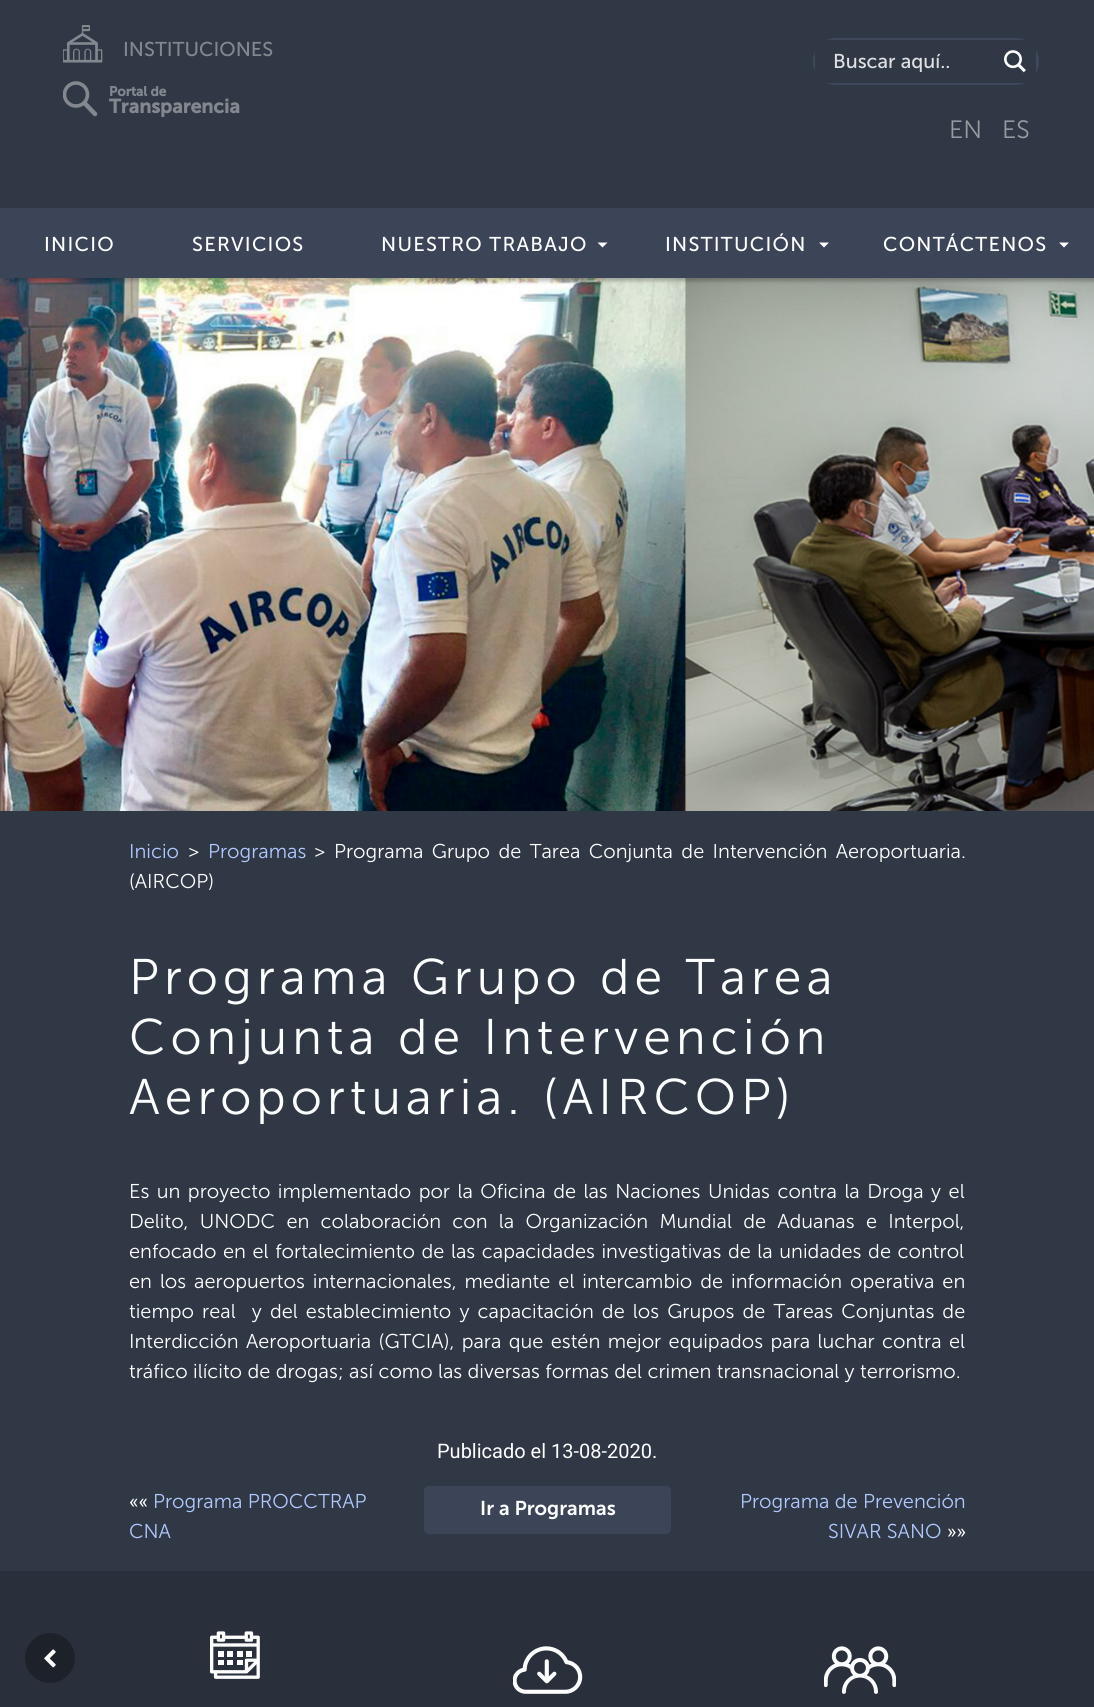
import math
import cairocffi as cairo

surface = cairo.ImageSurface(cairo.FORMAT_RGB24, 1094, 1707)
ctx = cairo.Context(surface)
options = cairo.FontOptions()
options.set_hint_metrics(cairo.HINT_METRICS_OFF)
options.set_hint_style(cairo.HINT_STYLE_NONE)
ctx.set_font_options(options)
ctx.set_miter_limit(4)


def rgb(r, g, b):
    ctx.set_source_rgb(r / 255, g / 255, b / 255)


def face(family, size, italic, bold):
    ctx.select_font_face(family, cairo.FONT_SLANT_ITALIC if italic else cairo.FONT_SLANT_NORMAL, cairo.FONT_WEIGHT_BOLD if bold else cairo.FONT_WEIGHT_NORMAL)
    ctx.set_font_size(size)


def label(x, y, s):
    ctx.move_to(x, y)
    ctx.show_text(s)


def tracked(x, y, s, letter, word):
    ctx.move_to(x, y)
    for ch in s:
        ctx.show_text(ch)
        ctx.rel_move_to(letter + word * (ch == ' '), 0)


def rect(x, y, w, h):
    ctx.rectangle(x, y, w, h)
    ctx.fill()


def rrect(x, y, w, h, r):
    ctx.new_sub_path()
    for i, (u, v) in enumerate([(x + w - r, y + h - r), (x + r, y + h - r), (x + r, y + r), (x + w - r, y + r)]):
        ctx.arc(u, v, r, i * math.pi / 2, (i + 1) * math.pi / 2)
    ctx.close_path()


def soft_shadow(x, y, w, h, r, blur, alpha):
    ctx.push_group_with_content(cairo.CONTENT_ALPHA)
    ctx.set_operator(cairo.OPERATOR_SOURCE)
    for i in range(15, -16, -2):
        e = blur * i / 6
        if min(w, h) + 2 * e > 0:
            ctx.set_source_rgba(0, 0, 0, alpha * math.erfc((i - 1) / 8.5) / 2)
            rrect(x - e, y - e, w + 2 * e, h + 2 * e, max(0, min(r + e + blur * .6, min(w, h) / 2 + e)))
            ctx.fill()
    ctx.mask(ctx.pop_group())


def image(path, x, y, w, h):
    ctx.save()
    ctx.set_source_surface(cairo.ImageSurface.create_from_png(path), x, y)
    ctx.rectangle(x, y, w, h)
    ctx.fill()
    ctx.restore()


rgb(48, 56, 69)
ctx.paint()
image('image0.png', 63, 25, 40, 38)
face('Museo Sans', 20, 0, 0)
rgb(131, 136, 143)
label(123, 56, 'INSTITUCIONES')
face('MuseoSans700', 13.5, 0, 1)
label(109, 96, 'Portal de')
ctx.save()
ctx.rectangle(63, 81, 192, 38)
ctx.clip()
ctx.arc(76, 94.5, 11.5, 0, 2 * math.pi)
ctx.set_line_width(3.6)
ctx.stroke()
ctx.restore()
face('MuseoSans700', 19.5, 0, 1)
tracked(109, 113, 'Transparencia', 0.1, 0)
ctx.new_path()
ctx.move_to(84.5, 103)
ctx.line_to(95, 114)
ctx.set_line_width(4.5)
ctx.set_line_cap(cairo.LINE_CAP_ROUND)
ctx.stroke()
rrect(814.5, 39.5, 223, 44, 22)
rgb(63, 72, 91)
ctx.set_line_width(3)
ctx.set_line_cap(cairo.LINE_CAP_BUTT)
ctx.stroke()
rgb(48, 56, 69)
rect(815, 40, 221, 43)
face('Museo Sans', 20, 0, 0)
rgb(224, 225, 227)
label(833, 68, 'Buscar aquí..')
image('image1.png', 1004, 50, 22, 23)
face('Museo Sans Light', 25, 0, 0)
rgb(152, 156, 162)
label(949, 138, 'EN')
label(1002, 138, 'ES')
image('image2.png', 0, 278, 1094, 533)
rgb(0, 0, 0)
soft_shadow(4, 211, 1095, 70, 0, 2, 0.25)
rgb(60, 69, 87)
rect(0, 208, 1094, 70)
face('Museo Sans', 20, 0, 0)
rgb(254, 255, 255)
tracked(44, 251, 'INICIO', 1.25, 0)
tracked(192, 251, 'SERVICIOS', 1.25, 0)
tracked(381, 251, 'NUESTRO TRABAJO', 1.25, 0)
ctx.new_path()
ctx.move_to(597.5, 242.5)
ctx.line_to(607.5, 242.5)
ctx.line_to(602.5, 247.5)
ctx.close_path()
ctx.fill()
tracked(665, 251, 'INSTITUCIÓN', 1.25, 0)
ctx.new_path()
ctx.move_to(819, 242.5)
ctx.line_to(829, 242.5)
ctx.line_to(824, 247.5)
ctx.close_path()
ctx.fill()
tracked(883, 251, 'CONTÁCTENOS', 1.25, 0)
ctx.new_path()
ctx.move_to(1059, 242.5)
ctx.line_to(1069, 242.5)
ctx.line_to(1064, 247.5)
ctx.close_path()
ctx.fill()
face('Museo Sans Light', 20, 0, 0)
rgb(177, 201, 255)
label(129, 858, 'Inicio')
rgb(254, 255, 255)
label(188, 858, '>')
rgb(177, 201, 255)
label(208, 858, 'Programas')
rgb(254, 255, 255)
label(314, 858, '>')
tracked(334, 858, 'Programa Grupo de Tarea Conjunta de Intervención Aeroportuaria.', 0, 3)
label(129, 888, '(AIRCOP)')
face('Museo Sans Light', 50, 0, 0)
tracked(129, 994, 'Programa Grupo de Tarea', 5, 0)
tracked(129, 1054, 'Conjunta de Intervención', 5, 0)
tracked(129, 1114, 'Aeroportuaria. (AIRCOP)', 5, 0)
face('Museo Sans Light', 20, 0, 0)
tracked(129, 1198, 'Es un proyecto implementado por la Oficina de las Naciones Unidas contra la Droga y el', 0, 2.1)
tracked(129, 1228, 'Delito, UNODC en colaboración con la Organización Mundial de Aduanas e Interpol,', 0, 5.9)
tracked(129, 1258, 'enfocado en el fortalecimiento de las capacidades investigativas de la unidades de control', 0, 1.25)
tracked(129, 1288, 'en los aeropuertos internacionales, mediante el intercambio de información operativa en', 0, 2.6)
tracked(129, 1318, 'tiempo real  y del establecimiento y capacitación de los Grupos de Tareas Conjuntas de', 0, 2.75)
tracked(129, 1348, 'Interdicción Aeroportuaria (GTCIA), para que estén mejor equipados para luchar contra el', 0, 2)
label(129, 1378, 'tráfico ilícito de drogas; así como las diversas formas del crimen transnacional y terrorismo.')
face('Roboto', 20, 0, 0)
label(437, 1458, 'Publicado el 13-08-2020.')
label(129, 1508, '««')
face('Museo Sans Light', 20, 0, 0)
rgb(177, 201, 255)
label(153, 1508, 'Programa PROCCTRAP')
label(129, 1538, 'CNA')
rgb(60, 69, 87)
rrect(424, 1486, 247, 48, 5)
ctx.fill()
face('MuseoSans700', 20, 0, 0)
rgb(254, 255, 255)
label(480, 1515, 'Ir a Programas')
face('Museo Sans Light', 20, 0, 0)
rgb(177, 201, 255)
label(740, 1508, 'Programa de Prevención')
label(828, 1538, 'SIVAR SANO')
face('Roboto', 20, 0, 0)
rgb(254, 255, 255)
label(947, 1538, '»»')
rgb(41, 48, 60)
rect(0, 1571, 1094, 136)
image('image3.png', 210, 1631, 50, 48)
image('image4.png', 513, 1646, 70, 48)
image('image5.png', 824, 1646, 72, 48)
rgb(29, 34, 42)
ctx.arc(50, 1658, 25, 0, 2 * math.pi)
ctx.fill()
image('image6.png', 44, 1649, 12, 19)
surface.write_to_png('render.png')
